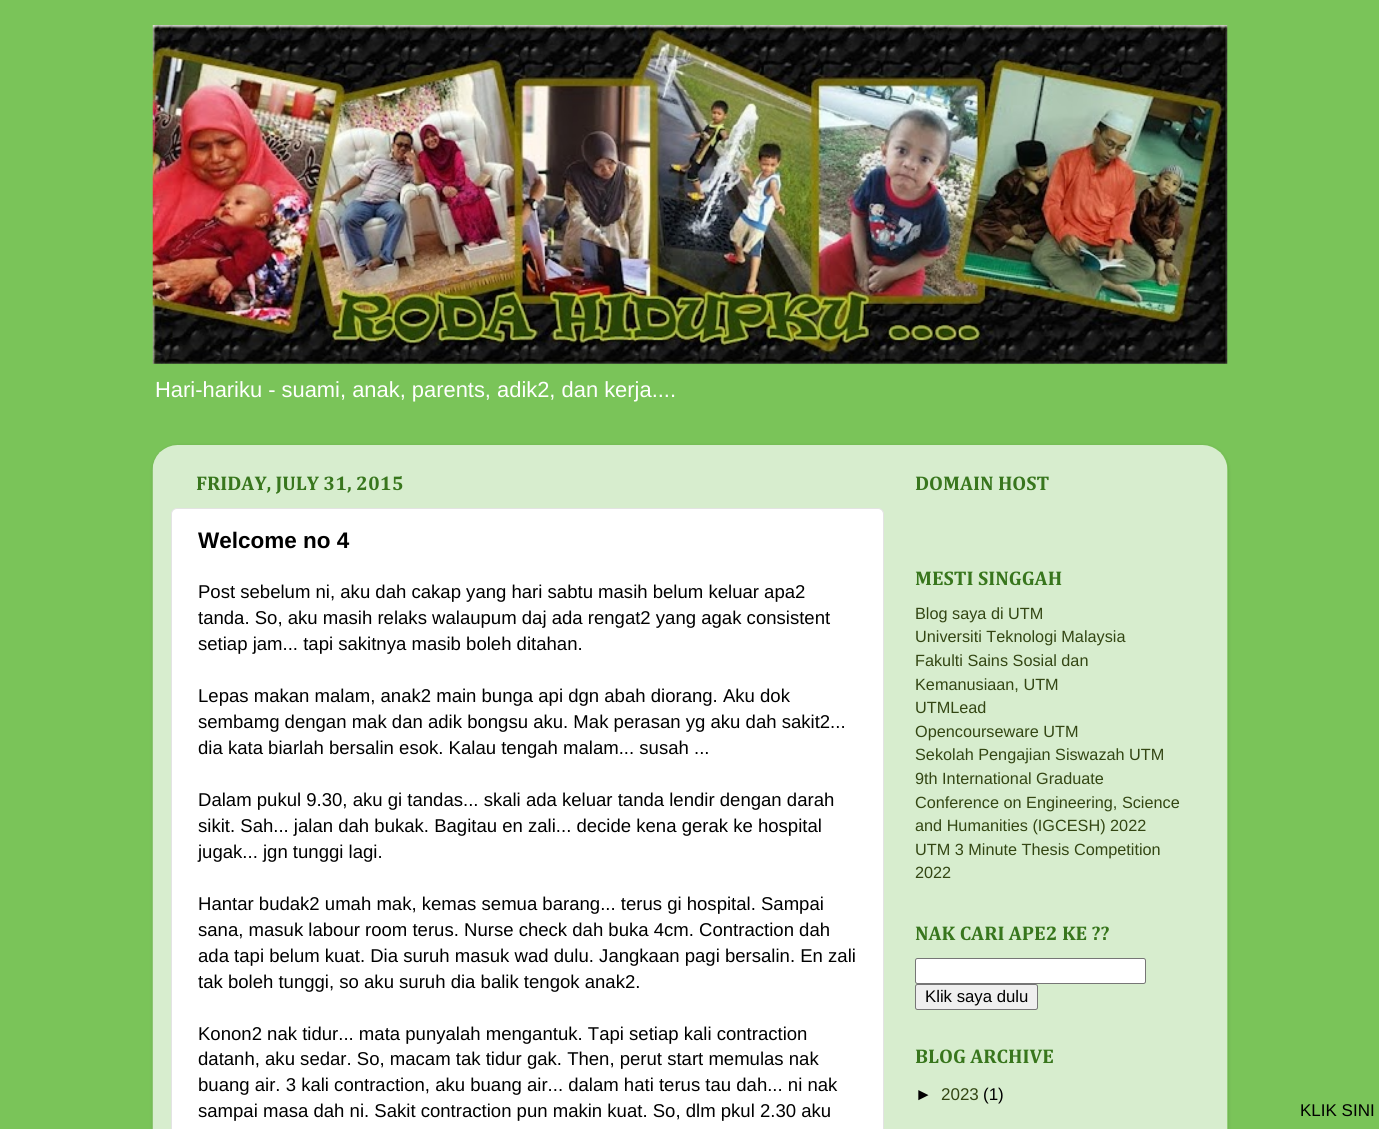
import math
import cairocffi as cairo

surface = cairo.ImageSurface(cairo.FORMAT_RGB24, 1379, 1129)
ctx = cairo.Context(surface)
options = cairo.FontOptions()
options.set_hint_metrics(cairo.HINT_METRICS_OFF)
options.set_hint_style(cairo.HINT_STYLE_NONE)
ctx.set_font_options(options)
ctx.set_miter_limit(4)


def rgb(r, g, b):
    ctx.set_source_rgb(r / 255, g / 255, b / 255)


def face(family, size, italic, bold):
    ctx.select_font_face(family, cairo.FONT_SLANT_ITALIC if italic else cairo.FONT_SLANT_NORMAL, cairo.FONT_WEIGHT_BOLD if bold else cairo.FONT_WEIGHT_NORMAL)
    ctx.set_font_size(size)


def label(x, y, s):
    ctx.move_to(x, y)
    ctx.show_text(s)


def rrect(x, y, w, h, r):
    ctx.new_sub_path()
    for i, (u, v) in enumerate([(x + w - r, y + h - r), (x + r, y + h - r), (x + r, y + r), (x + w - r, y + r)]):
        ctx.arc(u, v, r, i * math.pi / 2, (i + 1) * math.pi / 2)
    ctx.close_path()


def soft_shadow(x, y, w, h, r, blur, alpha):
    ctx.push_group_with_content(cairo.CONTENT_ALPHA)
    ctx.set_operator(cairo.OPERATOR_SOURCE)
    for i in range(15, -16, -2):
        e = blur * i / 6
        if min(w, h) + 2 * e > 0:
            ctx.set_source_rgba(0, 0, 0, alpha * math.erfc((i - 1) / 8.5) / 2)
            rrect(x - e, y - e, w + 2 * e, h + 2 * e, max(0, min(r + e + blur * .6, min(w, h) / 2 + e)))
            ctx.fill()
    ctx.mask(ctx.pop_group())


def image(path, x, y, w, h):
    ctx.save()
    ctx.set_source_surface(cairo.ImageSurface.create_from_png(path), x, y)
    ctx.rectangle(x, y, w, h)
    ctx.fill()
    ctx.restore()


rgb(122, 196, 89)
ctx.paint()
image('image0.png', 152, 25, 1076, 339)
face('Liberation Sans', 21.9, 0, 0)
rgb(255, 255, 255)
label(155, 397, 'Hari-hariku - suami, anak, parents, adik2, dan kerja....')
ctx.save()
ctx.set_fill_rule(cairo.FILL_RULE_EVEN_ODD)
ctx.new_path()
ctx.move_to(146, 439)
ctx.line_to(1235, 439)
ctx.line_to(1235, 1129)
ctx.line_to(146, 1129)
ctx.close_path()
ctx.move_to(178, 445)
ctx.line_to(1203, 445)
ctx.curve_to(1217, 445, 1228, 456, 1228, 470)
ctx.line_to(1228, 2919)
ctx.line_to(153, 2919)
ctx.line_to(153, 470)
ctx.curve_to(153, 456, 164, 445, 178, 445)
ctx.close_path()
ctx.clip()
rgb(0, 0, 0)
soft_shadow(153, 446, 1075, 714, 25, 2, 0.15)
ctx.restore()
image('image1.png', 152, 445, 1076, 684)
face('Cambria', 20, 0, 1)
rgb(56, 118, 29)
label(196, 490, 'FRIDAY, JULY 31, 2015')
rgb(255, 255, 255)
rrect(171.5, 508.5, 712, 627, 5.5)
ctx.fill_preserve()
rgb(227, 227, 227)
ctx.set_line_width(1)
ctx.stroke()
face('Liberation Sans', 22.5, 0, 1)
rgb(0, 0, 0)
label(198, 548, 'Welcome no 4')
face('Liberation Sans', 18.55, 0, 0)
label(198, 598, 'Post sebelum ni, aku dah cakap yang hari sabtu masih belum keluar apa2')
label(198, 624, 'tanda. So, aku masih relaks walaupum daj ada rengat2 yang agak consistent')
label(198, 650, 'setiap jam... tapi sakitnya masib boleh ditahan.')
label(198, 702, 'Lepas makan malam, anak2 main bunga api dgn abah diorang. Aku dok')
label(198, 728, 'sembamg dengan mak dan adik bongsu aku. Mak perasan yg aku dah sakit2...')
label(198, 754, 'dia kata biarlah bersalin esok. Kalau tengah malam... susah ...')
label(198, 806, 'Dalam pukul 9.30, aku gi tandas... skali ada keluar tanda lendir dengan darah')
label(198, 832, 'sikit. Sah... jalan dah bukak. Bagitau en zali... decide kena gerak ke hospital')
label(198, 858, 'jugak... jgn tunggi lagi.')
label(198, 910, 'Hantar budak2 umah mak, kemas semua barang... terus gi hospital. Sampai')
label(198, 936, 'sana, masuk labour room terus. Nurse check dah buka 4cm. Contraction dah')
label(198, 962, 'ada tapi belum kuat. Dia suruh masuk wad dulu. Jangkaan pagi bersalin. En zali')
label(198, 988, 'tak boleh tunggi, so aku suruh dia balik tengok anak2.')
label(198, 1040, 'Konon2 nak tidur... mata punyalah mengantuk. Tapi setiap kali contraction')
label(198, 1065, 'datanh, aku sedar. So, macam tak tidur gak. Then, perut start memulas nak')
label(198, 1091, 'buang air. 3 kali contraction, aku buang air... dalam hati terus tau dah... ni nak')
label(198, 1117, 'sampai masa dah ni. Sakit contraction pun makin kuat. So, dlm pkul 2.30 aku')
face('Cambria', 20, 0, 1)
rgb(56, 118, 29)
label(915, 490, 'DOMAIN HOST')
label(915, 585, 'MESTI SINGGAH')
face('Liberation Sans', 16.25, 0, 0)
rgb(51, 70, 19)
label(915, 619, 'Blog saya di UTM')
label(915, 642, 'Universiti Teknologi Malaysia')
label(915, 666, 'Fakulti Sains Sosial dan')
label(915, 690, 'Kemanusiaan, UTM')
label(915, 713, 'UTMLead')
label(915, 737, 'Opencourseware UTM')
label(915, 760, 'Sekolah Pengajian Siswazah UTM')
label(915, 784, '9th International Graduate')
label(915, 808, 'Conference on Engineering, Science')
label(915, 831, 'and Humanities (IGCESH) 2022')
label(915, 855, 'UTM 3 Minute Thesis Competition')
label(915, 878, '2022')
face('Cambria', 20, 0, 1)
rgb(56, 118, 29)
label(915, 940, 'NAK CARI APE2 KE ??')
rgb(255, 255, 255)
rrect(915.5, 958.5, 230, 25, 2)
ctx.fill_preserve()
rgb(118, 118, 118)
ctx.stroke()
rgb(239, 239, 239)
rrect(915.5, 984.5, 122, 25, 2)
ctx.fill_preserve()
rgb(118, 118, 118)
ctx.stroke()
face('Liberation Sans', 16.75, 0, 0)
rgb(0, 0, 0)
label(925, 1002, 'Klik saya dulu')
face('Cambria', 20, 0, 1)
rgb(56, 118, 29)
label(915, 1063, 'BLOG ARCHIVE')
face('Liberation Sans', 17, 0, 0)
rgb(0, 0, 0)
label(915, 1100, '►')
rgb(51, 70, 19)
label(941, 1100, '2023')
rgb(0, 0, 0)
label(983, 1100, '(1)')
label(1300, 1116, 'KLIK SINI')
surface.write_to_png('render.png')
